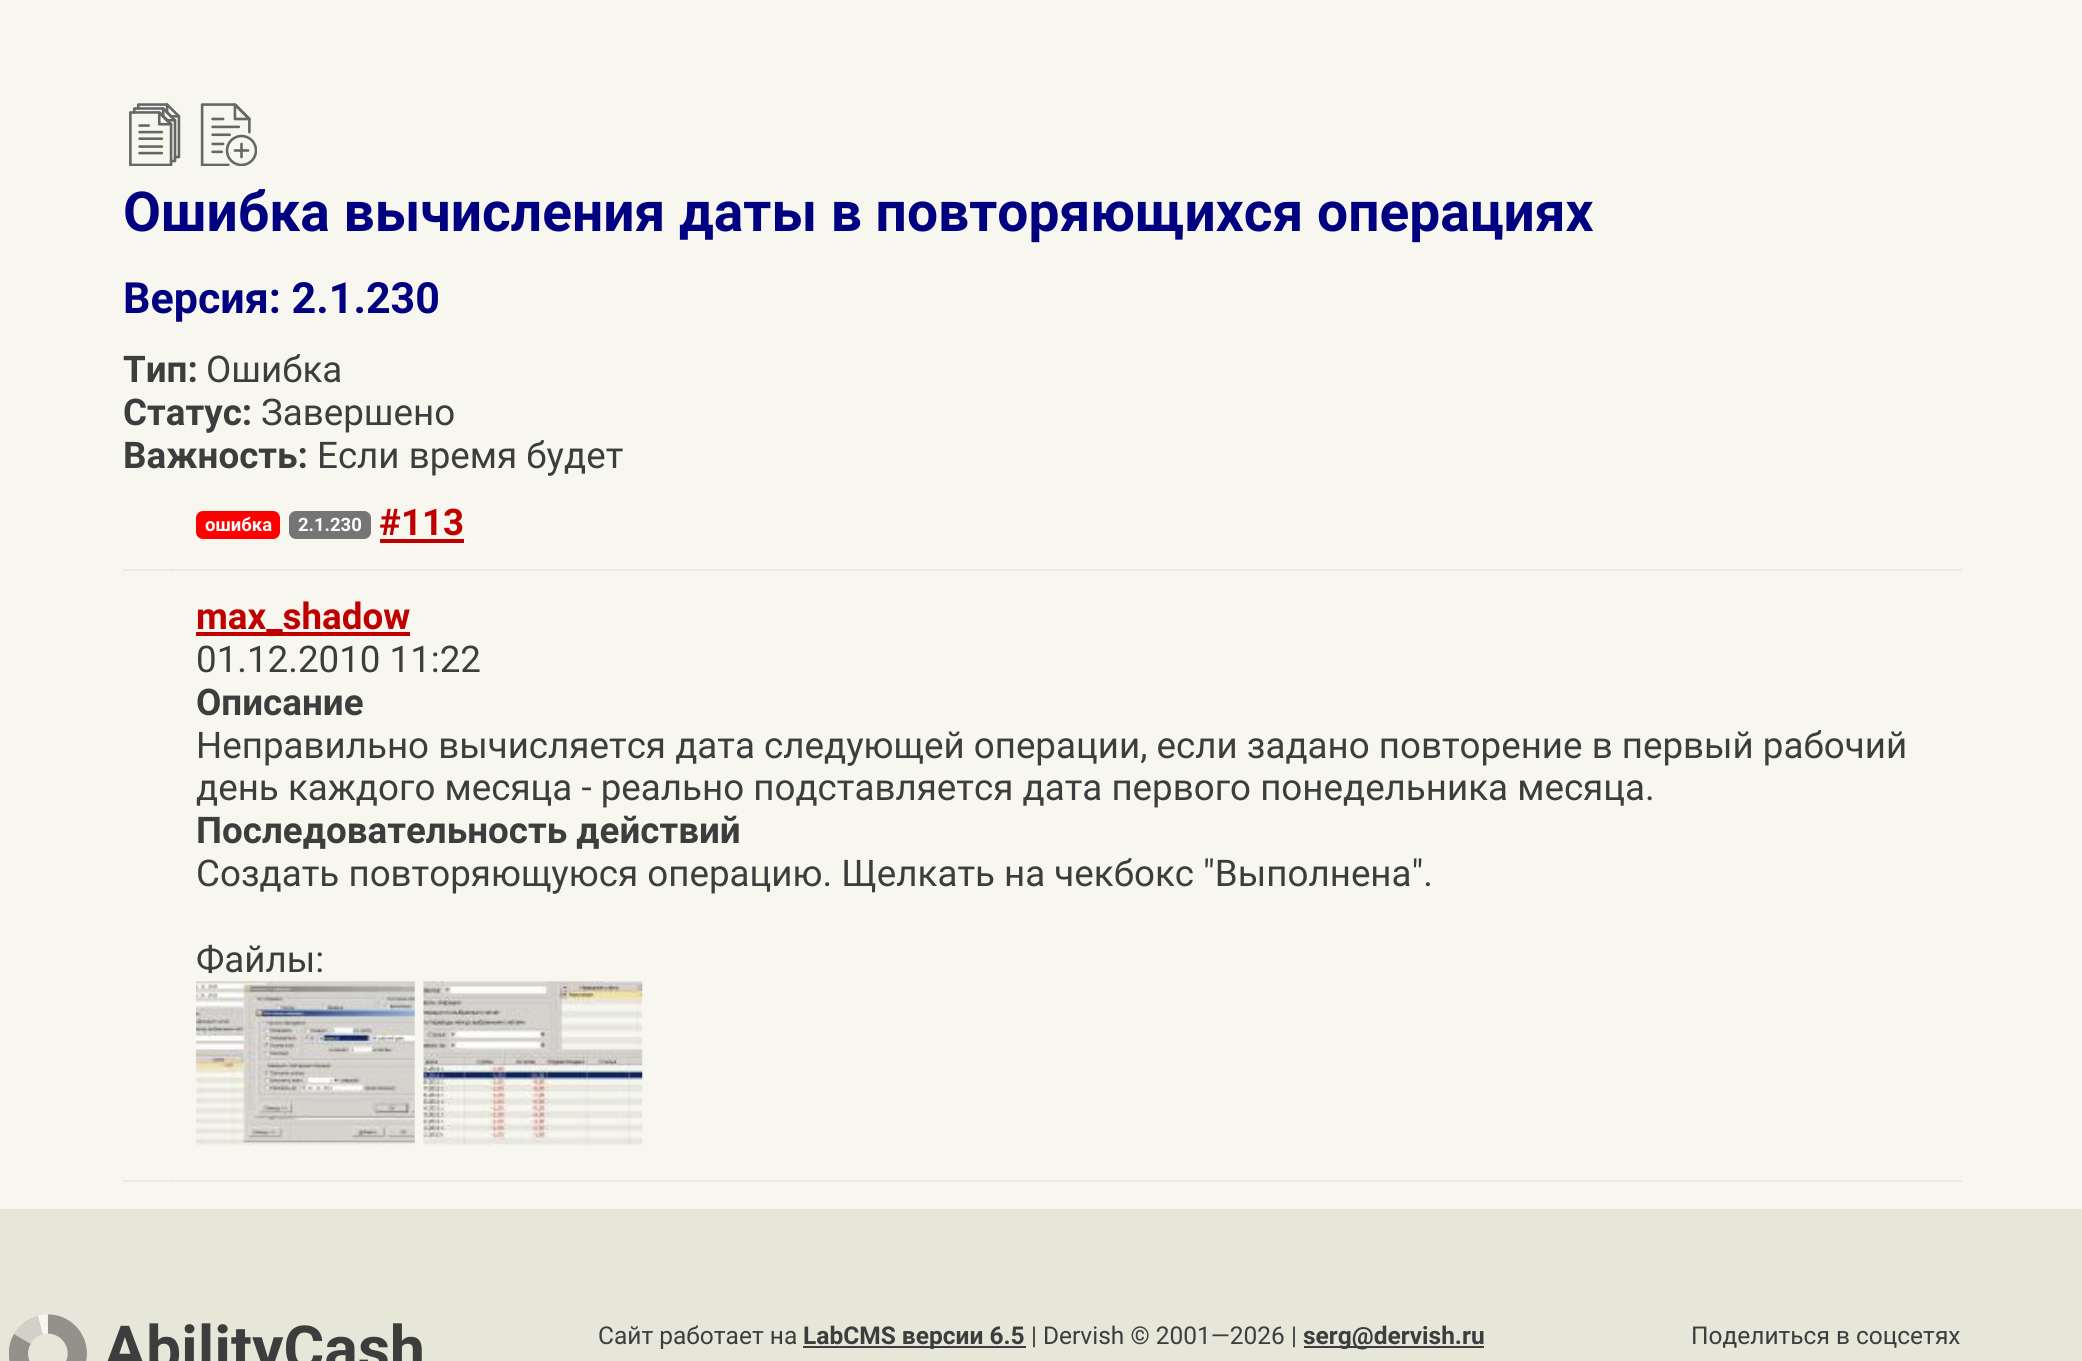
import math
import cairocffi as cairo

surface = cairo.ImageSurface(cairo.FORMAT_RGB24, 2082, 1361)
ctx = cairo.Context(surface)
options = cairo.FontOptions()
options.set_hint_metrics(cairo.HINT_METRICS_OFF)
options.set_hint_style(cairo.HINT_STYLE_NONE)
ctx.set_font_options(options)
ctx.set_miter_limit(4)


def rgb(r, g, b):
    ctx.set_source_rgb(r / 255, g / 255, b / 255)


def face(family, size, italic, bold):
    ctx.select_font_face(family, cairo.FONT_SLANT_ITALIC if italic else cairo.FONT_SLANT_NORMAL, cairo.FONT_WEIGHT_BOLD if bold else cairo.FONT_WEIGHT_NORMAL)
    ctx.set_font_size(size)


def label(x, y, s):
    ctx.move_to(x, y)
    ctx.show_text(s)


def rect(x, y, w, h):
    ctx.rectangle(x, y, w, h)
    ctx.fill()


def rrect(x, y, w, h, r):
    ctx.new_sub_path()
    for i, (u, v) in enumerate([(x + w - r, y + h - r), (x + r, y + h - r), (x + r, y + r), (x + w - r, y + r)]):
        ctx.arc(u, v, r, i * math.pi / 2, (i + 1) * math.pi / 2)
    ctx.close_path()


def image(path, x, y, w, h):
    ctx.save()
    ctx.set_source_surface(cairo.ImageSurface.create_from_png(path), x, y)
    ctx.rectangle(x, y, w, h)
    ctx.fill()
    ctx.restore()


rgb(247, 247, 239)
ctx.paint()
rgb(235, 235, 227)
rect(123, 569, 1839, 2)
rect(123, 1180, 1839, 2)
image('image0.png', 129, 103, 52, 63)
image('image1.png', 200, 103, 57, 63)
face('Roboto', 55.1, 0, 1)
rgb(0, 0, 128)
label(123, 231, 'Ошибка вычисления даты в повторяющихся операциях')
face('Roboto', 43, 0, 1)
label(123, 313, 'Версия: 2.1.230')
face('Roboto', 36.75, 0, 1)
rgb(61, 61, 61)
label(123, 382, 'Тип:')
face('Roboto', 36.75, 0, 0)
label(206, 382, 'Ошибка')
face('Roboto', 36.75, 0, 1)
label(123, 425, 'Статус:')
face('Roboto', 36.75, 0, 0)
label(261, 425, 'Завершено')
face('Roboto', 36.75, 0, 1)
label(123, 468, 'Важность:')
face('Roboto', 36.75, 0, 0)
label(317, 468, 'Если время будет')
rgb(223, 223, 216)
rect(172, 569, 1, 2)
rgb(255, 0, 0)
rrect(196, 511, 84, 28, 7)
ctx.fill()
face('Roboto', 18.5, 0, 1)
rgb(255, 255, 255)
label(205, 531, 'ошибка')
rgb(117, 117, 117)
rrect(289, 511, 82, 28, 7)
ctx.fill()
rgb(255, 255, 255)
label(298, 531, '2.1.230')
face('Roboto', 36.75, 0, 1)
rgb(192, 0, 0)
label(379, 535, '#113')
rect(380, 539, 84, 4)
rgb(223, 223, 216)
rect(172, 1180, 1, 2)
rgb(192, 0, 0)
rect(196, 632, 214, 4)
label(196, 629, 'max_shadow')
face('Roboto', 36.75, 0, 0)
rgb(61, 61, 61)
label(196, 672, '01.12.2010 11:22')
face('Roboto', 36.75, 0, 1)
label(196, 715, 'Описание')
face('Roboto', 36.75, 0, 0)
label(196, 758, 'Неправильно вычисляется дата следующей операции, если задано повторение в первый рабочий')
label(196, 800, 'день каждого месяца - реально подставляется дата первого понедельника месяца.')
face('Roboto', 36.75, 0, 1)
label(196, 843, 'Последовательность действий')
face('Roboto', 36.75, 0, 0)
label(196, 886, 'Создать повторяющуюся операцию. Щелкать на чекбокс "Выполнена".')
label(196, 972, 'Файлы:')
image('image2.png', 196, 981, 219, 165)
image('image3.png', 423, 981, 220, 165)
rgb(230, 230, 217)
rect(0, 1209, 2082, 152)
image('image4.png', 9, 1314, 413, 47)
face('Roboto', 24.5, 0, 0)
rgb(61, 61, 61)
label(598, 1344, 'Сайт работает на')
rect(803, 1346, 223, 2)
face('Roboto', 24.5, 0, 1)
label(803, 1344, 'LabCMS версии 6.5')
face('Roboto', 24.5, 0, 0)
label(1031, 1344, '| Dervish © 2001—2026 |')
rect(1304, 1346, 180, 2)
face('Roboto', 24.5, 0, 1)
label(1303, 1344, 'serg@dervish.ru')
face('Roboto', 24.5, 0, 0)
label(1691, 1344, 'Поделиться в соцсетях')
surface.write_to_png('render.png')
